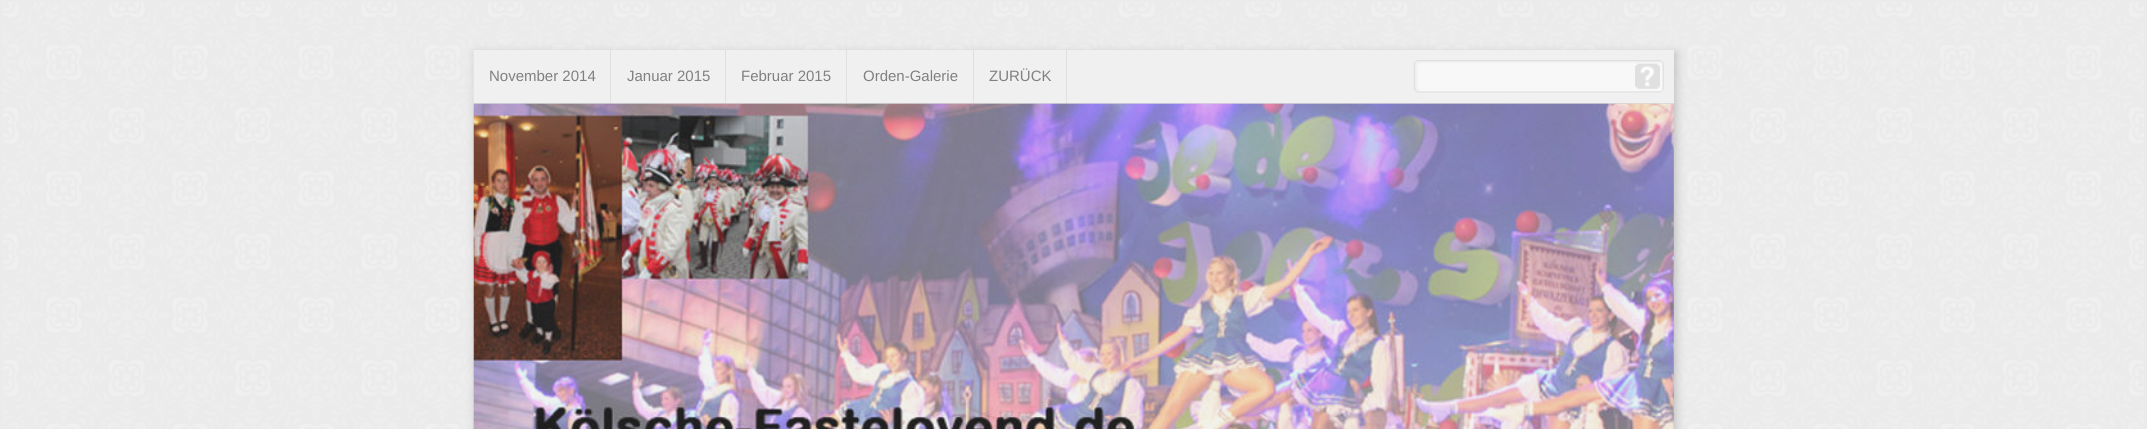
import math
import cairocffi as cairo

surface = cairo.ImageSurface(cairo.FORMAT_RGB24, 2147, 429)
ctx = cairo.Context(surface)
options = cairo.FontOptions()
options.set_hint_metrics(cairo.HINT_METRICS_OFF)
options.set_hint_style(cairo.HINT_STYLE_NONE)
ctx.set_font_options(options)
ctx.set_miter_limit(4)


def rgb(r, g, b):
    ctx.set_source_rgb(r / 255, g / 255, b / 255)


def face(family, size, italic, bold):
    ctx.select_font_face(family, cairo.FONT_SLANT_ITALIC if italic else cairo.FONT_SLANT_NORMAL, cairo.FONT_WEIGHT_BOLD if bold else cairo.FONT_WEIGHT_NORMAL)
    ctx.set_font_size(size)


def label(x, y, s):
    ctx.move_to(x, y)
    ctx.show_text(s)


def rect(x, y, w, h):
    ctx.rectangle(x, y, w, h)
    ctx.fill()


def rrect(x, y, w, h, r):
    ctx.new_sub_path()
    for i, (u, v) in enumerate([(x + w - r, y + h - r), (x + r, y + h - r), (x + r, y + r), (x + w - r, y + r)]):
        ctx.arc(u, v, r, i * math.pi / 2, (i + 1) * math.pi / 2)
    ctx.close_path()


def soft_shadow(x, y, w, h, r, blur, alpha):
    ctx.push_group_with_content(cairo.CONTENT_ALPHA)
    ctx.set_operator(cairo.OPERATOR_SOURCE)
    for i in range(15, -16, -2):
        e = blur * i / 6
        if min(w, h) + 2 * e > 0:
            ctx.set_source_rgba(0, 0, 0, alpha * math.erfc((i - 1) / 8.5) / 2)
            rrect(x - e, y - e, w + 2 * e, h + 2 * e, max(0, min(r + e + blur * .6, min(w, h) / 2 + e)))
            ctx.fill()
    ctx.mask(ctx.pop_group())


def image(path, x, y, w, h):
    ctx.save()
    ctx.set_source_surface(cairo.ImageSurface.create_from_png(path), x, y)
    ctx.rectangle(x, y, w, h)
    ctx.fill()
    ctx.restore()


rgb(235, 235, 235)
ctx.paint()
image('image0.png', 3, 2, 2141, 427)
rgb(0, 0, 0)
soft_shadow(476, 53, 1200, 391, 0, 5, 0.2)
image('image1.png', 473, 50, 1, 379)
rgb(240, 240, 240)
rect(474, 50, 1200, 53)
rgb(224, 224, 224)
rect(474, 103, 1200, 1)
rect(610, 50, 1, 53)
face('Liberation Sans', 15, 0, 0)
rgb(128, 128, 128)
label(489, 81, 'November 2014')
rgb(224, 224, 224)
rect(725, 50, 1, 53)
rgb(128, 128, 128)
label(627, 81, 'Januar 2015')
rgb(224, 224, 224)
rect(846, 50, 1, 53)
rgb(128, 128, 128)
label(741, 81, 'Februar 2015')
rgb(224, 224, 224)
rect(973, 50, 1, 53)
rgb(128, 128, 128)
label(863, 81, 'Orden-Galerie')
rgb(224, 224, 224)
rect(1066, 50, 1, 53)
rgb(128, 128, 128)
label(989, 81, 'ZURÜCK')
image('image2.png', 1413, 60, 251, 33)
image('image3.png', 1635, 63, 25, 26)
image('image4.png', 473, 103, 1201, 326)
image('image5.png', 473, 103, 1201, 326)
surface.write_to_png('render.png')
